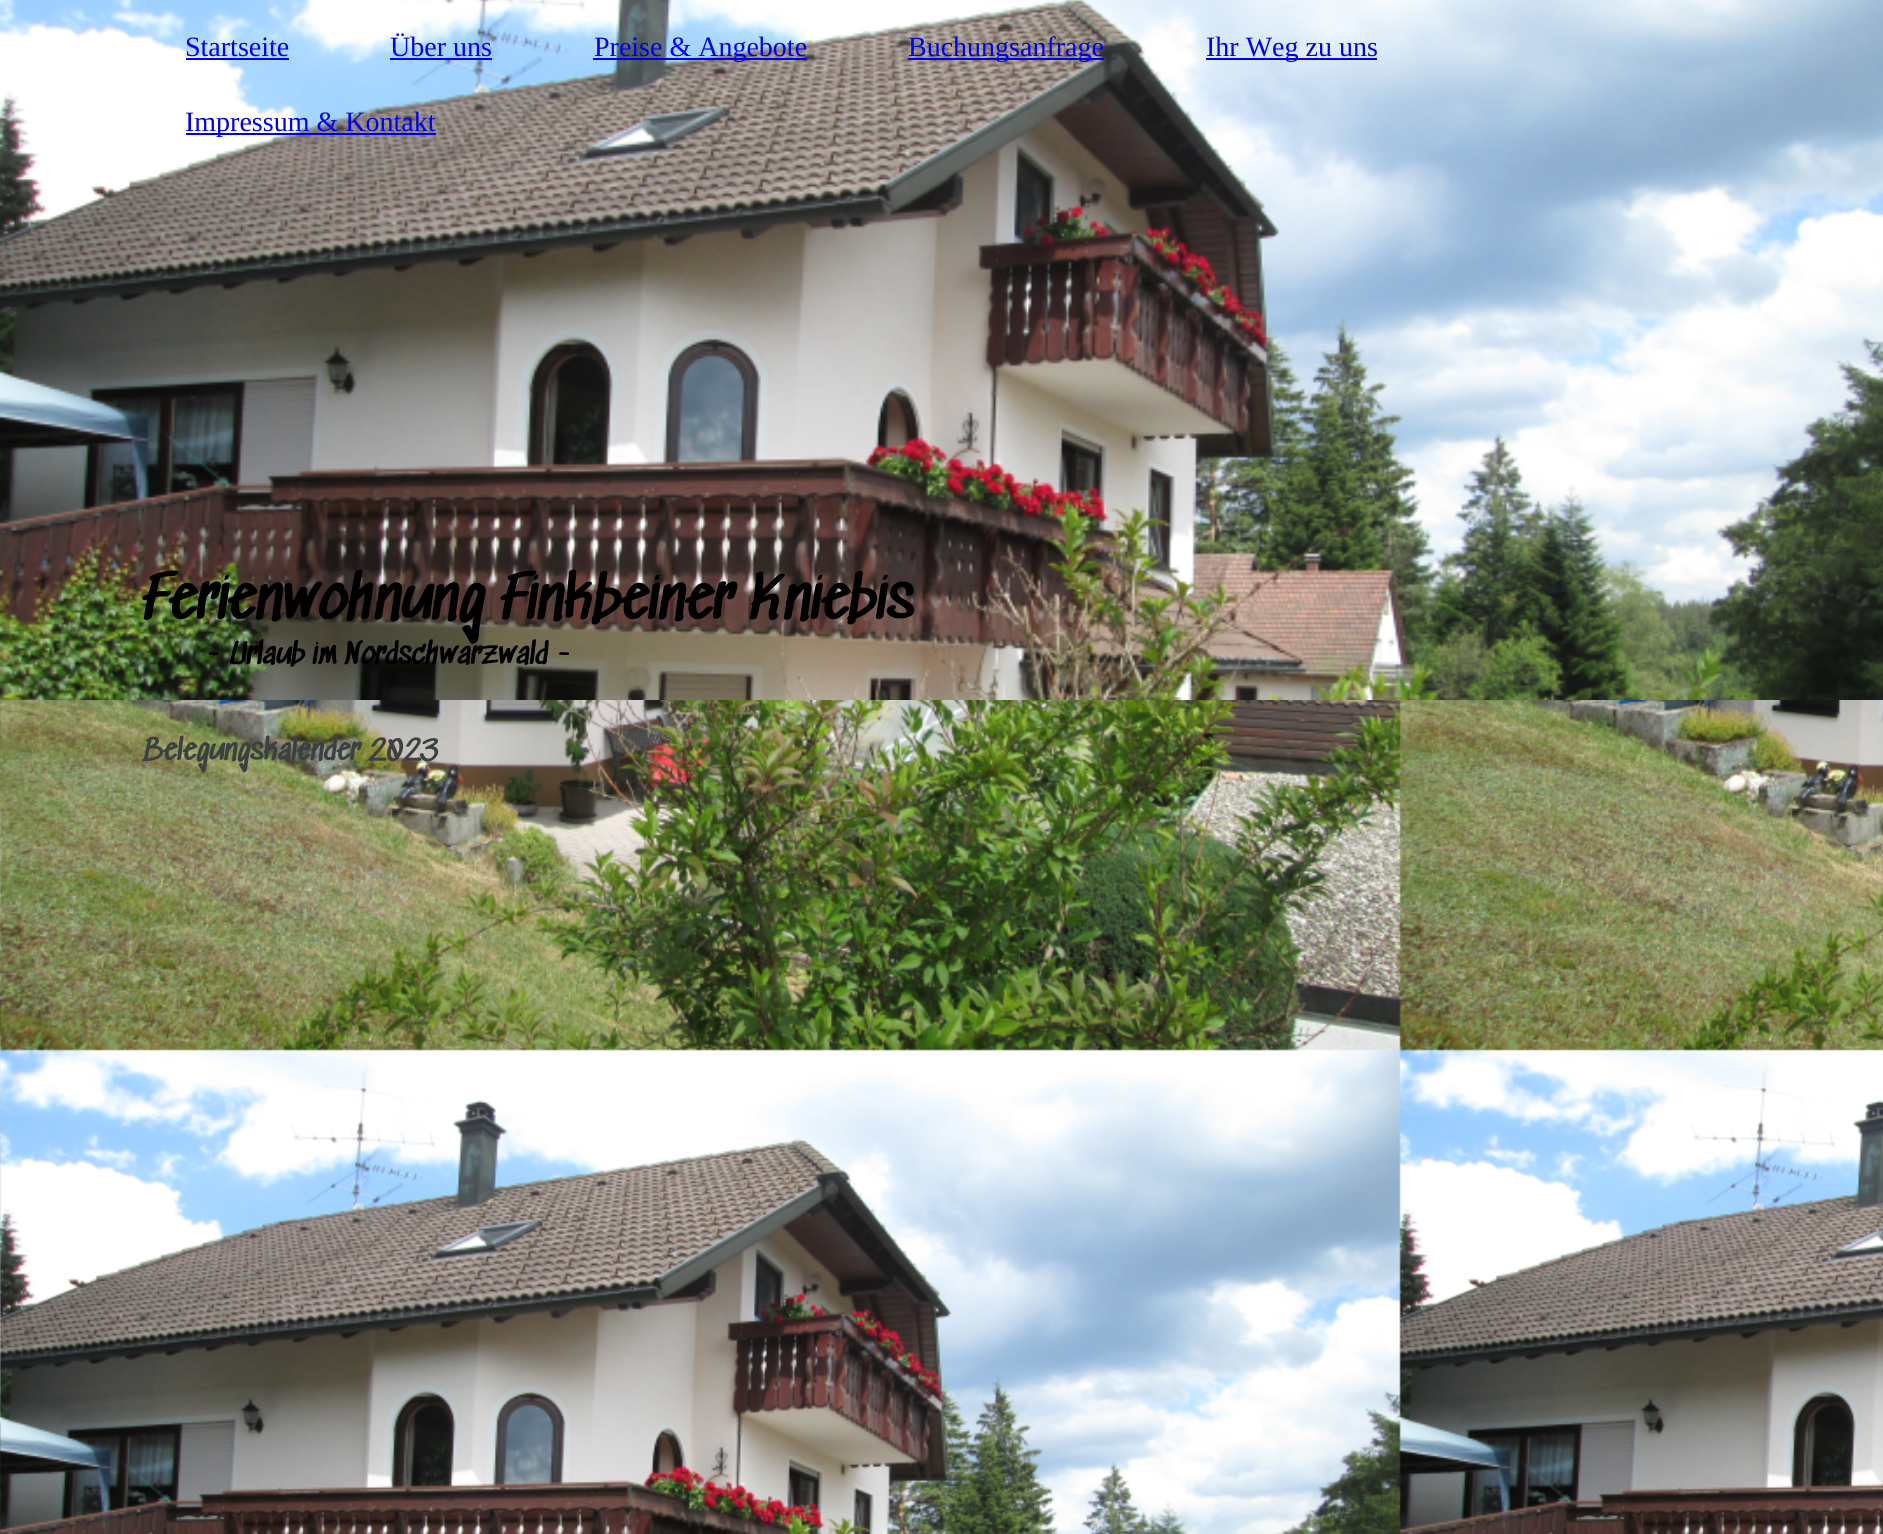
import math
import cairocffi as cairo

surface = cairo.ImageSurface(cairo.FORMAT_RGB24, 1883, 1534)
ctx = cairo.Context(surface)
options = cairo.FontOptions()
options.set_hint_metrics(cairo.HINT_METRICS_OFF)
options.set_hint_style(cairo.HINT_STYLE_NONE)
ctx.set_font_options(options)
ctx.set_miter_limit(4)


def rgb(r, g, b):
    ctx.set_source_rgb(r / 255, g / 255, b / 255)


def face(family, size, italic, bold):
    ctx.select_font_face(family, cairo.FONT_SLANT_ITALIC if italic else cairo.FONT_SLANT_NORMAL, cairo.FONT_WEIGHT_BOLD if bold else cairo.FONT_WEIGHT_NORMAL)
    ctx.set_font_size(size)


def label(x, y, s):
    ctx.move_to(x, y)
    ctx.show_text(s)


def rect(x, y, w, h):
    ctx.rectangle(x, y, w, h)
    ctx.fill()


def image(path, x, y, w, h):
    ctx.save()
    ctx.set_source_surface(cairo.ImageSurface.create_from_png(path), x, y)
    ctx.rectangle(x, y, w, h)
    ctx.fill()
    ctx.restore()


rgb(255, 255, 255)
ctx.paint()
image('image0.png', 0, 0, 1883, 700)
face('Liberation Serif', 28, 0, 0)
rgb(0, 0, 238)
label(185, 56, 'Startseite')
rect(186, 58, 103, 2)
label(390, 56, 'Über uns')
rect(390, 58, 102, 2)
rect(593, 58, 214, 2)
label(594, 56, 'Preise & Angebote')
rect(908, 58, 196, 2)
label(908, 56, 'Buchungsanfrage')
rect(1206, 58, 171, 2)
label(1206, 56, 'Ihr Weg zu uns')
rect(186, 133, 250, 2)
label(185, 131, 'Impressum & Kontakt')
face('Sedgwick Ave', 56.5, 0, 1)
rgb(0, 0, 0)
label(141, 621, 'Ferienwohnung Finkbeiner Kniebis')
face('Sedgwick Ave', 28.25, 0, 1)
label(205, 665, '- Urlaub im Nordschwarzwald -')
image('image1.png', 0, 700, 1883, 834)
face('Sedgwick Ave', 28, 0, 1)
rgb(59, 64, 64)
label(141, 761, 'Belegungskalender 2023')
surface.write_to_png('render.png')
